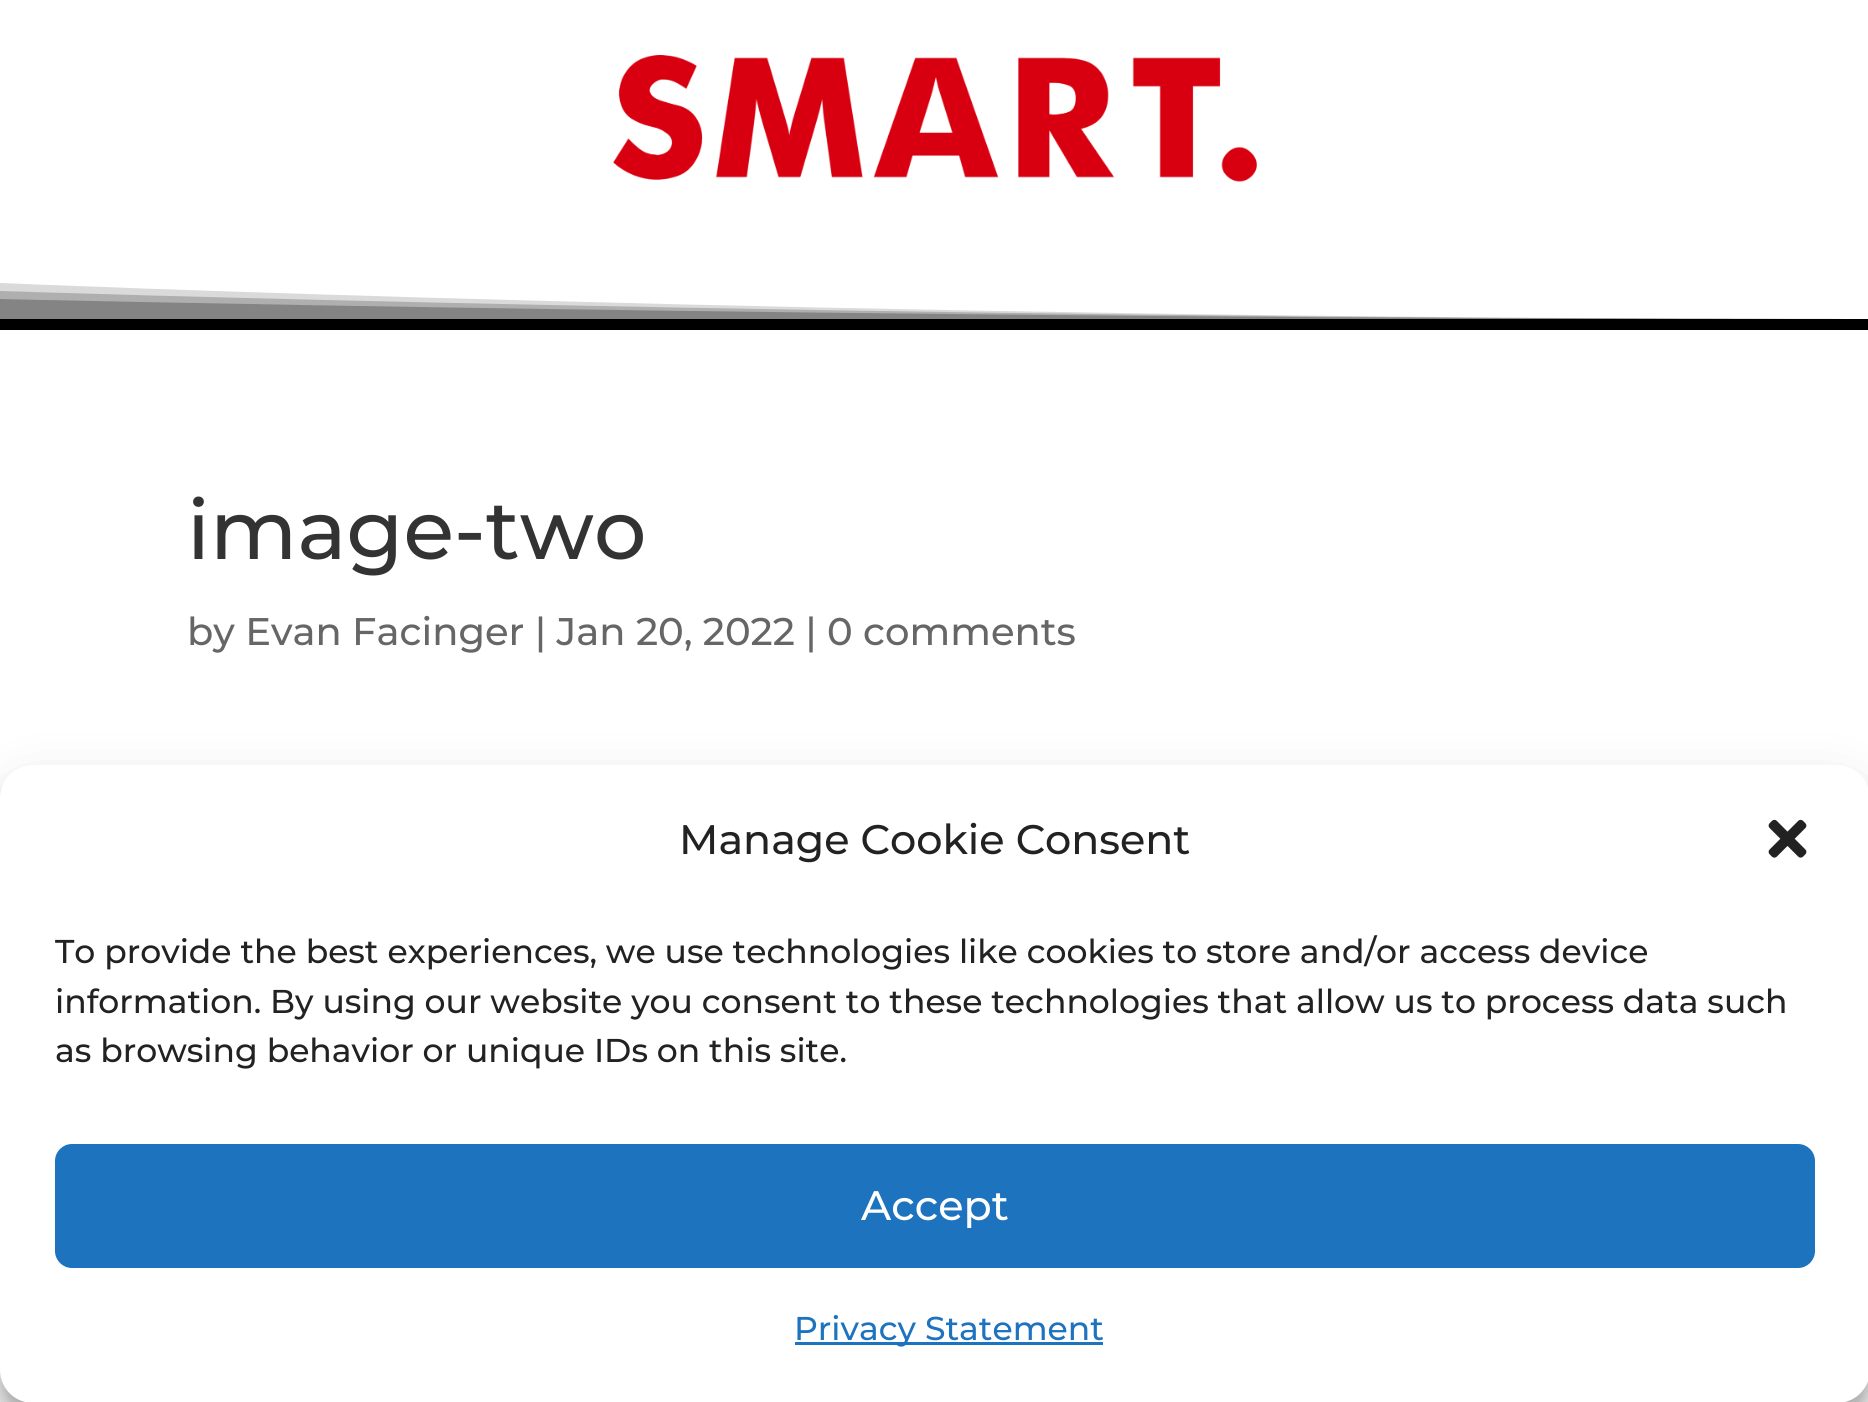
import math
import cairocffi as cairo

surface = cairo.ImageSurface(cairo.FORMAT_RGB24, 1868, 1402)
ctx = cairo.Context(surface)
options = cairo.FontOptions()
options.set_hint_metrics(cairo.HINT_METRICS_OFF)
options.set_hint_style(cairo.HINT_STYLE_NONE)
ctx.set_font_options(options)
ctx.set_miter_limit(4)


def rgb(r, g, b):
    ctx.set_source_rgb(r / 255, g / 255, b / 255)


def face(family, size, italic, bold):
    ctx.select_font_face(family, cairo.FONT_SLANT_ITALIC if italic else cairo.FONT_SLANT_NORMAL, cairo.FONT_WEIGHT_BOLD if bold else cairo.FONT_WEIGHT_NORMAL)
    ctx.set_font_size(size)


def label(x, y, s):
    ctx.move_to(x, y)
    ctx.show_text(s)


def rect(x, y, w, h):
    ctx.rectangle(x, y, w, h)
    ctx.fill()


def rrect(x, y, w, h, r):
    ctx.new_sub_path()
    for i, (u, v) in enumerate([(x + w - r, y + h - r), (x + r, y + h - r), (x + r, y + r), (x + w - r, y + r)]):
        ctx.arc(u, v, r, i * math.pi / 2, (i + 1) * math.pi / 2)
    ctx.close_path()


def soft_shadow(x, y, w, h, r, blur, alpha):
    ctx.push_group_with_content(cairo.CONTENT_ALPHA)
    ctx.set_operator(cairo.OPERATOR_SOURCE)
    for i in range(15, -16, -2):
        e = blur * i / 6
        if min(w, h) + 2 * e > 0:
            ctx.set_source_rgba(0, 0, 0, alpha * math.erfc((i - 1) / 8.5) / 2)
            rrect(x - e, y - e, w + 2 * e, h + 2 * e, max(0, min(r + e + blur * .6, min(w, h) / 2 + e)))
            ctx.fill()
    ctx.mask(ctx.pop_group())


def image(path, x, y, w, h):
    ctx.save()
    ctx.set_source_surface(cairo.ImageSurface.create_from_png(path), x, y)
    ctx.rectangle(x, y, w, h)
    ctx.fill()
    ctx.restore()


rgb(255, 255, 255)
ctx.paint()
rgb(0, 0, 0)
rect(0, 319, 1868, 11)
image('image0.png', 613, 55, 644, 127)
rgb(218, 218, 218)
ctx.new_path()
ctx.move_to(0, 319)
ctx.line_to(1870, 319)
ctx.curve_to(837, 319, 0, 283, 0, 283)
ctx.close_path()
ctx.fill()
ctx.set_source_rgba(0.518, 0.518, 0.518, 0.5)
ctx.new_path()
ctx.move_to(0, 319)
ctx.line_to(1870, 319)
ctx.curve_to(837, 319, 0, 291, 0, 291)
ctx.close_path()
ctx.fill()
rgb(132, 132, 132)
ctx.new_path()
ctx.move_to(0, 319)
ctx.line_to(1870, 319)
ctx.curve_to(837, 319, 0, 299, 0, 299)
ctx.close_path()
ctx.fill()
face('Montserrat Medium', 82.5, 0, 0)
rgb(51, 51, 51)
label(187, 559, 'image-two')
face('Montserrat Medium', 38.5, 0, 0)
rgb(102, 102, 102)
label(187, 645, 'by Evan Facinger | Jan 20, 2022 | 0 comments')
rgb(0, 0, 0)
soft_shadow(0, 781, 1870, 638, 33, 8, 0.23)
soft_shadow(0, 792, 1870, 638, 33, 27.5, 0.19)
rgb(255, 255, 255)
rrect(0, 765, 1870, 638, 33)
ctx.fill()
face('Montserrat Medium', 41.25, 0, 0)
rgb(34, 34, 34)
label(679, 854, 'Manage Cookie Consent')
image('image1.png', 1768, 819, 39, 39)
face('Montserrat Medium', 33, 0, 0)
label(55, 963, 'To provide the best experiences, we use technologies like cookies to store and/or access device')
label(55, 1013, 'information. By using our website you consent to these technologies that allow us to process data such')
label(55, 1062, 'as browsing behavior or unique IDs on this site.')
rgb(30, 115, 190)
rrect(56.5, 1145.5, 1757, 121, 15.5)
ctx.fill_preserve()
ctx.set_line_width(3)
ctx.stroke()
face('Montserrat Medium', 41.25, 0, 0)
rgb(255, 255, 255)
label(861, 1220, 'Accept')
rgb(30, 115, 190)
rect(795, 1342, 308, 3)
face('Montserrat Medium', 33, 0, 0)
label(794, 1340, 'Privacy Statement')
surface.write_to_png('render.png')
